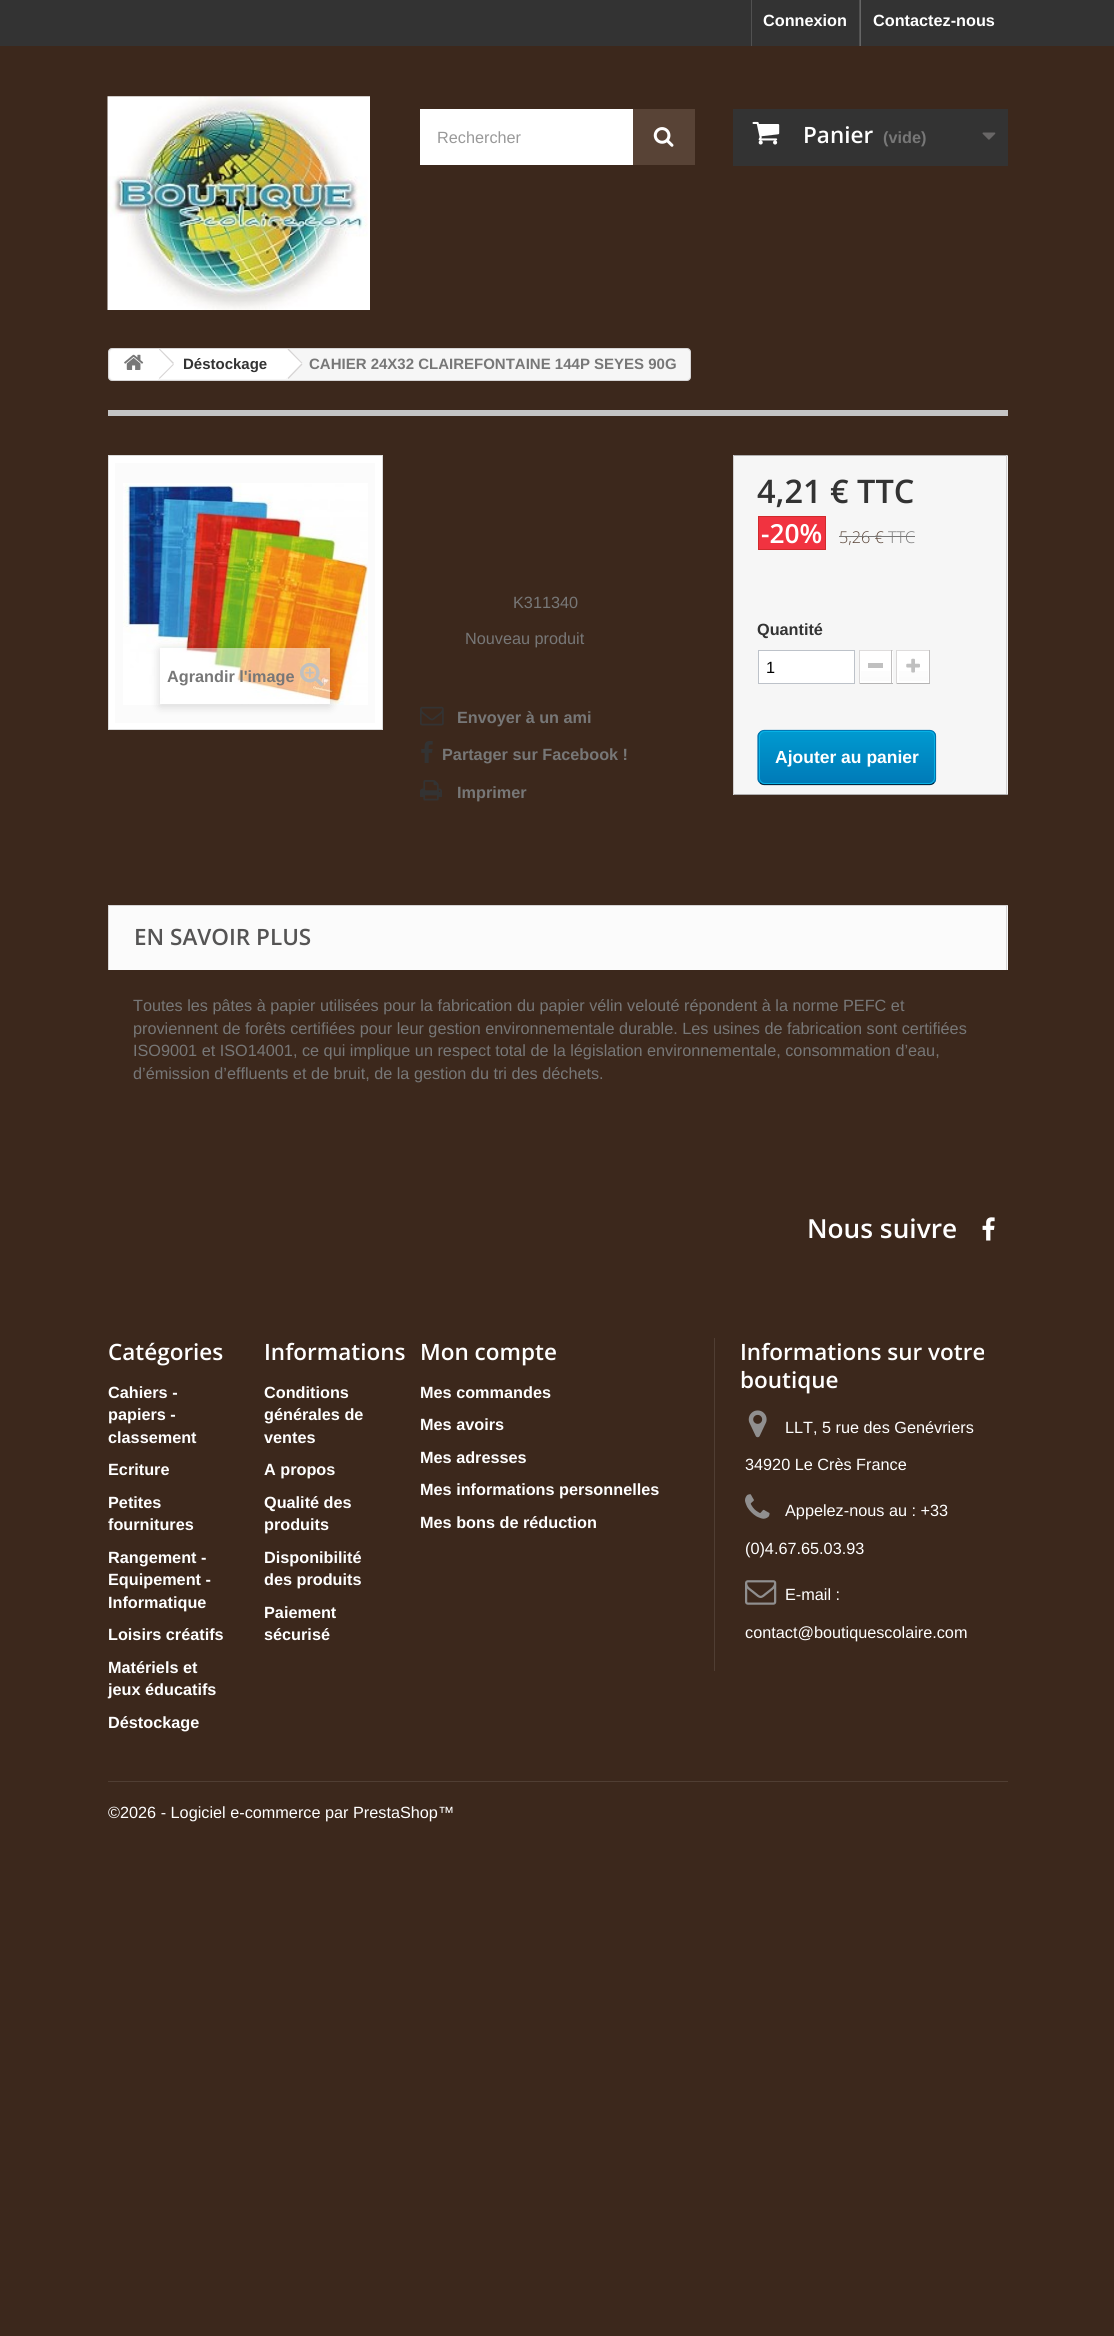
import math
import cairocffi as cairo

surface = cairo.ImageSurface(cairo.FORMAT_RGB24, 1114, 2336)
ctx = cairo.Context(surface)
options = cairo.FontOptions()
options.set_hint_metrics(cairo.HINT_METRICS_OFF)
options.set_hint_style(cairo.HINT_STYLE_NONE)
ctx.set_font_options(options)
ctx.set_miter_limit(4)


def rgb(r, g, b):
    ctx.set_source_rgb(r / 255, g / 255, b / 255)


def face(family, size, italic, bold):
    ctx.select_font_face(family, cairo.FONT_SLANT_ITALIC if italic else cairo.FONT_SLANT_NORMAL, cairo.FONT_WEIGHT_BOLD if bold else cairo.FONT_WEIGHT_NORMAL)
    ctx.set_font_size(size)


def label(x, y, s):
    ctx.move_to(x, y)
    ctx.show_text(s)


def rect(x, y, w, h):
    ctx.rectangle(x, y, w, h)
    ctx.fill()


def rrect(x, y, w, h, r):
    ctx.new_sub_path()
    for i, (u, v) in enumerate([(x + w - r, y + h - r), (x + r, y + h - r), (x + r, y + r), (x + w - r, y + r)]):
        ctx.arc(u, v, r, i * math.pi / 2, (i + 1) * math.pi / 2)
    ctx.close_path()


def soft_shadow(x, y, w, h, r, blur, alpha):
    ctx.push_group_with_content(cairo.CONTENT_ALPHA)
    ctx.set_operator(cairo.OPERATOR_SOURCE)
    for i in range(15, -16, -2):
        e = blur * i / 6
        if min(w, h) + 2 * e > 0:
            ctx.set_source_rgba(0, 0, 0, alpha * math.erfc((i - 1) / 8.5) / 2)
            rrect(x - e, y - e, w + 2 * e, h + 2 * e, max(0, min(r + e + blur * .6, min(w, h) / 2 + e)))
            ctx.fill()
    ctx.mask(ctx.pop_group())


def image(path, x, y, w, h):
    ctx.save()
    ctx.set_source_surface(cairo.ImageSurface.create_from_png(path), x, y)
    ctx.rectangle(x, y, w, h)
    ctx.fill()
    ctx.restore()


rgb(60, 40, 28)
ctx.paint()
rgb(51, 51, 51)
rect(0, 0, 1114, 46)
rgb(81, 81, 81)
rect(859, 0, 1, 46)
rect(751, 0, 1, 46)
face('Liberation Sans', 16.25, 0, 1)
rgb(255, 255, 255)
label(763, 26, 'Connexion')
rgb(101, 101, 101)
rect(860, 0, 1, 46)
rgb(255, 255, 255)
label(873, 26, 'Contactez-nous')
image('image0.png', 107, 96, 263, 214)
rect(420, 109, 213, 56)
face('Liberation Sans', 16.25, 0, 0)
rgb(153, 153, 153)
label(437, 143, 'Rechercher')
rgb(88, 67, 54)
rect(633, 109, 62, 56)
image('image1.png', 653, 127, 21, 20)
rgb(51, 51, 51)
rect(733, 109, 275, 57)
image('image2.png', 752, 121, 28, 24)
face('Open Sans SemiBold', 22.5, 0, 0)
rgb(255, 255, 255)
label(803, 143, 'Panier')
face('Liberation Sans', 16.25, 0, 1)
rgb(119, 119, 119)
label(883, 143, '(vide)')
image('image3.png', 982, 132, 14, 8)
rgb(246, 246, 246)
rrect(108.5, 348.5, 582, 32, 3.5)
ctx.fill_preserve()
rgb(214, 212, 212)
ctx.set_line_width(1)
ctx.stroke()
rgb(255, 255, 255)
ctx.new_path()
ctx.move_to(114, 349)
ctx.line_to(158, 349)
ctx.line_to(158, 380)
ctx.line_to(114, 380)
ctx.curve_to(112, 380, 110, 378, 110, 376)
ctx.line_to(110, 353)
ctx.curve_to(110, 351, 112, 349, 114, 349)
ctx.close_path()
ctx.fill()
image('image4.png', 124, 354, 20, 16)
rect(158, 349, 128, 30)
rgb(214, 212, 212)
ctx.new_path()
ctx.move_to(159.5, 348.5)
ctx.line_to(174, 363)
ctx.line_to(173, 364)
ctx.line_to(159, 349.5)
ctx.close_path()
ctx.move_to(173, 364)
ctx.line_to(174, 364.5)
ctx.line_to(159.5, 379)
ctx.line_to(159, 378)
ctx.close_path()
ctx.fill()
face('Liberation Sans', 15, 0, 1)
rgb(51, 51, 51)
label(183, 369, 'Déstockage')
rgb(255, 255, 255)
ctx.new_path()
ctx.move_to(289.5, 349.5)
ctx.line_to(289, 349)
ctx.line_to(286.5, 349)
ctx.line_to(286, 349.5)
ctx.line_to(273.5, 362)
ctx.curve_to(272.5, 363, 272.5, 364.5, 273.5, 365.5)
ctx.line_to(286, 378)
ctx.curve_to(287, 379, 288.5, 379, 289.5, 378)
ctx.line_to(301.5, 365.5)
ctx.curve_to(302.5, 364.5, 302.5, 363, 301.5, 362)
ctx.close_path()
ctx.fill()
rgb(214, 212, 212)
ctx.new_path()
ctx.move_to(288.5, 348.5)
ctx.line_to(302.5, 363)
ctx.line_to(301.5, 363.5)
ctx.line_to(287.5, 349.5)
ctx.close_path()
ctx.fill()
ctx.new_path()
ctx.move_to(301.5, 363.5)
ctx.line_to(302.5, 364.5)
ctx.line_to(288.5, 379)
ctx.line_to(287.5, 378)
ctx.close_path()
ctx.fill()
rgb(119, 119, 119)
label(309, 369, 'CAHIER 24X32 CLAIREFONTAINE 144P SEYES 90G')
rgb(196, 196, 196)
rect(108, 410, 900, 6)
rgb(255, 255, 255)
ctx.rectangle(108.5, 455.5, 274, 274)
ctx.fill_preserve()
rgb(219, 219, 219)
ctx.stroke()
rgb(251, 251, 251)
rect(115, 463, 260, 260)
image('image5.png', 123, 483, 245, 222)
ctx.save()
ctx.set_fill_rule(cairo.FILL_RULE_EVEN_ODD)
ctx.new_path()
ctx.move_to(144, 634)
ctx.line_to(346, 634)
ctx.line_to(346, 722)
ctx.line_to(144, 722)
ctx.close_path()
ctx.move_to(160, 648)
ctx.line_to(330, 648)
ctx.line_to(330, 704)
ctx.line_to(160, 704)
ctx.close_path()
ctx.clip()
rgb(0, 0, 0)
soft_shadow(160, 650, 170, 56, 0, 5, 0.16)
ctx.restore()
ctx.set_source_rgba(1, 1, 1, 0.5)
rect(163, 648, 167, 56)
face('Liberation Sans', 16.25, 0, 1)
rgb(119, 119, 119)
label(167, 682, 'Agrandir l\'image')
image('image6.png', 300, 662, 24, 24)
face('Liberation Sans', 16.25, 0, 0)
label(513, 608, 'K311340')
label(465, 644, 'Nouveau produit')
image('image7.png', 420, 706, 24, 20)
face('Liberation Sans', 16.25, 0, 1)
label(457, 723, 'Envoyer à un ami')
image('image8.png', 421, 741, 12, 22)
label(442, 760, 'Partager sur Facebook !')
image('image9.png', 420, 780, 22, 21)
label(457, 798, 'Imprimer')
rgb(246, 246, 246)
rect(734, 456, 274, 338)
rgb(176, 175, 175)
rect(733, 455, 275, 1)
rgb(210, 208, 208)
rect(1006, 455, 1, 340)
rgb(176, 175, 175)
rect(733, 794, 275, 1)
rgb(210, 208, 208)
rect(733, 455, 1, 340)
face('Open Sans SemiBold', 32.5, 0, 0)
rgb(51, 51, 51)
label(757, 503, '4,21 € TTC')
rgb(241, 51, 64)
ctx.rectangle(758.5, 516.5, 67, 33)
ctx.fill_preserve()
rgb(208, 42, 44)
ctx.stroke()
face('Open Sans SemiBold', 26.25, 0, 0)
rgb(255, 255, 255)
label(761, 543, '-20%')
face('Open Sans Light', 16.25, 0, 0)
rgb(88, 67, 54)
label(839, 543, '5,26 €')
rgb(119, 119, 119)
rect(839, 536, 45, 1)
label(888, 543, 'TTC')
rect(884, 536, 31, 1)
face('Liberation Sans', 16.25, 0, 1)
rgb(51, 51, 51)
label(757, 635, 'Quantité')
rgb(255, 255, 255)
ctx.rectangle(758.5, 650.5, 96, 33)
ctx.fill_preserve()
rgb(189, 194, 201)
ctx.stroke()
face('Liberation Sans', 16.25, 0, 0)
rgb(0, 0, 0)
label(766, 673, '1')
rgb(255, 255, 255)
rect(861, 651, 32, 32)
rgb(222, 220, 220)
rect(859, 650, 34, 1)
rgb(193, 191, 191)
rect(891, 650, 1, 34)
rgb(181, 180, 180)
rect(859, 683, 34, 1)
rgb(218, 216, 216)
rect(859, 650, 1, 34)
gradient = cairo.LinearGradient(876, 653, 876, 681)
gradient.add_color_stop_rgba(0, 1, 1, 1, 1)
gradient.add_color_stop_rgba(1, 0.984, 0.984, 0.984, 1)
ctx.set_source(gradient)
rect(861, 671, 29, 10)
ctx.rectangle(860.5, 651.5, 30, 31)
rgb(255, 255, 255)
ctx.stroke()
rgb(192, 192, 192)
rect(868, 663, 15, 5)
rgb(255, 255, 255)
rect(897, 651, 31, 32)
rgb(222, 220, 220)
rect(896, 650, 34, 1)
rgb(193, 191, 191)
rect(929, 650, 1, 34)
rgb(181, 180, 180)
rect(896, 683, 34, 1)
rgb(218, 216, 216)
rect(896, 650, 1, 34)
gradient = cairo.LinearGradient(913, 653, 913, 681)
gradient.add_color_stop_rgba(0, 1, 1, 1, 1)
gradient.add_color_stop_rgba(1, 0.984, 0.984, 0.984, 1)
ctx.set_source(gradient)
rect(899, 671, 29, 10)
ctx.rectangle(898.5, 651.5, 30, 31)
rgb(255, 255, 255)
ctx.stroke()
image('image10.png', 906, 658, 14, 15)
ctx.save()
rrect(758, 730, 178, 55, 6)
ctx.clip()
gradient = cairo.LinearGradient(847, 731, 847, 784)
gradient.add_color_stop_rgba(0, 0, 0.604, 0.816, 1)
gradient.add_color_stop_rgba(1, 0, 0.478, 0.718, 1)
ctx.set_source(gradient)
rect(758, 731, 178, 53)
ctx.restore()
ctx.new_path()
ctx.move_to(760, 732.5)
ctx.curve_to(761, 731, 762.5, 730.5, 764, 730.5)
ctx.line_to(930, 730.5)
ctx.curve_to(931.5, 730.5, 933, 731, 934, 732.5)
rgb(0, 121, 182)
ctx.set_line_width(1.2)
ctx.stroke()
ctx.new_path()
ctx.move_to(934, 732.5)
ctx.curve_to(935, 733.5, 935.5, 735, 935.5, 736)
ctx.line_to(935.5, 779)
ctx.curve_to(935.5, 780, 935, 781.5, 934, 782.5)
rgb(0, 111, 168)
ctx.stroke()
ctx.new_path()
ctx.move_to(934, 782.5)
ctx.curve_to(933, 784, 931.5, 784.5, 930, 784.5)
ctx.line_to(764, 784.5)
ctx.curve_to(762.5, 784.5, 761, 784, 760, 782.5)
rgb(1, 39, 64)
ctx.stroke()
ctx.new_path()
ctx.move_to(760, 782.5)
ctx.curve_to(758.5, 781.5, 758, 780, 758, 779)
ctx.line_to(758, 736)
ctx.curve_to(758, 735, 758.5, 733.5, 760, 732.5)
rgb(0, 111, 168)
ctx.stroke()
rrect(759.5, 731.5, 175, 52, 5.5)
rgb(6, 178, 230)
ctx.set_line_width(1)
ctx.stroke()
face('Liberation Sans', 17.5, 0, 1)
rgb(255, 255, 255)
label(775, 763, 'Ajouter au panier')
rgb(251, 251, 251)
rect(109, 906, 899, 64)
rgb(214, 212, 212)
rect(108, 905, 900, 1)
rect(1006, 905, 1, 65)
rect(108, 905, 1, 65)
face('Open Sans SemiBold', 22.5, 0, 0)
rgb(85, 84, 84)
label(134, 945, 'EN SAVOIR PLUS')
face('Liberation Sans', 16.25, 0, 0)
rgb(119, 119, 119)
label(133, 1011, 'Toutes les pâtes à papier utilisées pour la fabrication du papier vélin velouté répondent à la norme PEFC et')
label(133, 1034, 'proviennent de forêts certifiées pour leur gestion environnementale durable. Les usines de fabrication sont certifiées')
label(133, 1056, 'ISO9001 et ISO14001, ce qui implique un respect total de la législation environnementale, consommation d’eau,')
label(133, 1079, 'd’émission d’effluents et de bruit, de la gestion du tri des déchets.')
face('Open Sans SemiBold', 26.25, 0, 0)
rgb(255, 255, 255)
label(807, 1238, 'Nous suivre')
image('image11.png', 982, 1217, 13, 24)
face('Open Sans SemiBold', 22.5, 0, 0)
label(108, 1360, 'Catégories')
face('Liberation Sans', 16.25, 0, 1)
label(108, 1398, 'Cahiers -')
label(108, 1420, 'papiers -')
label(108, 1443, 'classement')
label(108, 1475, 'Ecriture')
label(108, 1508, 'Petites')
label(108, 1530, 'fournitures')
label(108, 1563, 'Rangement -')
label(108, 1585, 'Equipement -')
label(108, 1608, 'Informatique')
label(108, 1640, 'Loisirs créatifs')
label(108, 1673, 'Matériels et')
label(108, 1695, 'jeux éducatifs')
label(108, 1728, 'Déstockage')
face('Open Sans SemiBold', 22.5, 0, 0)
label(264, 1360, 'Informations')
face('Liberation Sans', 16.25, 0, 1)
label(264, 1398, 'Conditions')
label(264, 1420, 'générales de')
label(264, 1443, 'ventes')
label(264, 1475, 'A propos')
label(264, 1508, 'Qualité des')
label(264, 1530, 'produits')
label(264, 1563, 'Disponibilité')
label(264, 1585, 'des produits')
label(264, 1618, 'Paiement')
label(264, 1640, 'sécurisé')
face('Open Sans SemiBold', 22.5, 0, 0)
label(420, 1360, 'Mon compte')
face('Liberation Sans', 16.25, 0, 1)
label(420, 1398, 'Mes commandes')
label(420, 1430, 'Mes avoirs')
label(420, 1463, 'Mes adresses')
label(420, 1495, 'Mes informations personnelles')
label(420, 1528, 'Mes bons de réduction')
rgb(80, 62, 51)
rect(714, 1338, 1, 333)
face('Open Sans SemiBold', 22.5, 0, 0)
rgb(255, 255, 255)
label(740, 1360, 'Informations sur votre')
label(740, 1388, 'boutique')
image('image12.png', 748, 1410, 19, 28)
face('Liberation Sans', 16.25, 0, 0)
label(785, 1433, 'LLT, 5 rue des Genévriers')
label(745, 1470, '34920 Le Crès France')
image('image13.png', 745, 1494, 25, 25)
label(785, 1516, 'Appelez-nous au : +33')
label(745, 1554, '(0)4.67.65.03.93')
image('image14.png', 745, 1580, 32, 25)
label(785, 1600, 'E-mail :')
label(745, 1638, 'contact@boutiquescolaire.com')
rgb(80, 62, 51)
rect(108, 1781, 900, 1)
rgb(255, 255, 255)
label(108, 1818, '©2026 - Logiciel e-commerce par PrestaShop™')
surface.write_to_png('render.png')
